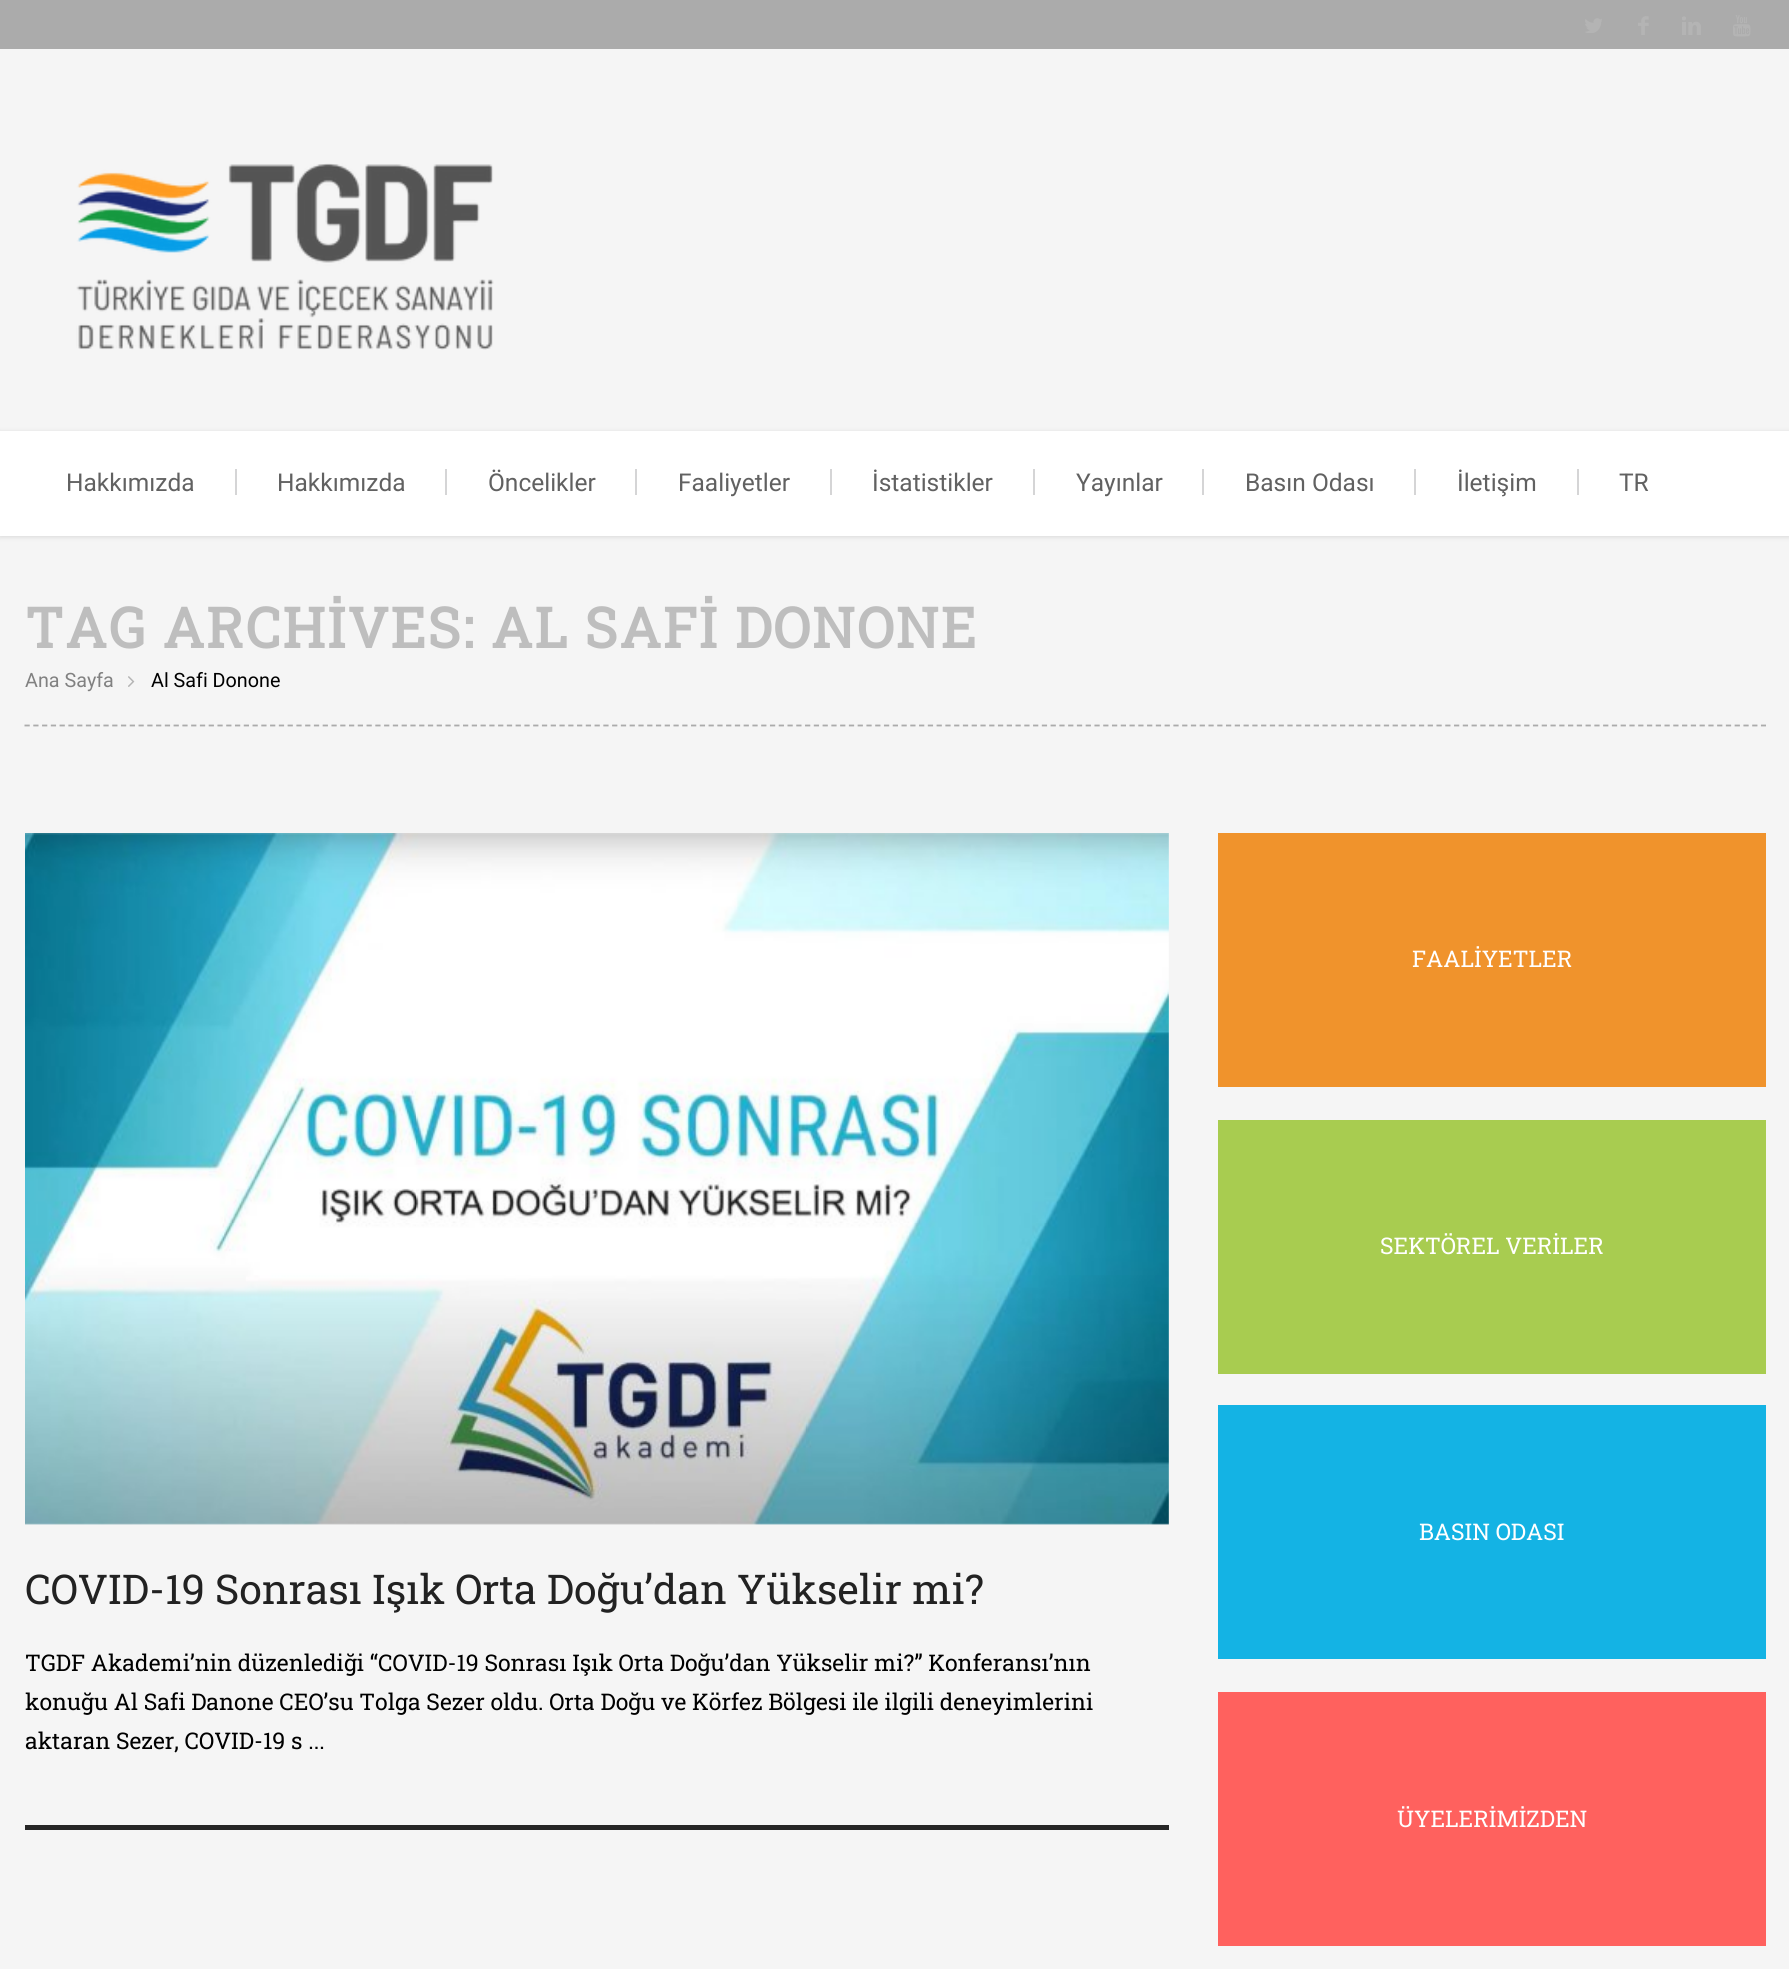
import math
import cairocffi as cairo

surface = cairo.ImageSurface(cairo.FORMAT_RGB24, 1789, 1969)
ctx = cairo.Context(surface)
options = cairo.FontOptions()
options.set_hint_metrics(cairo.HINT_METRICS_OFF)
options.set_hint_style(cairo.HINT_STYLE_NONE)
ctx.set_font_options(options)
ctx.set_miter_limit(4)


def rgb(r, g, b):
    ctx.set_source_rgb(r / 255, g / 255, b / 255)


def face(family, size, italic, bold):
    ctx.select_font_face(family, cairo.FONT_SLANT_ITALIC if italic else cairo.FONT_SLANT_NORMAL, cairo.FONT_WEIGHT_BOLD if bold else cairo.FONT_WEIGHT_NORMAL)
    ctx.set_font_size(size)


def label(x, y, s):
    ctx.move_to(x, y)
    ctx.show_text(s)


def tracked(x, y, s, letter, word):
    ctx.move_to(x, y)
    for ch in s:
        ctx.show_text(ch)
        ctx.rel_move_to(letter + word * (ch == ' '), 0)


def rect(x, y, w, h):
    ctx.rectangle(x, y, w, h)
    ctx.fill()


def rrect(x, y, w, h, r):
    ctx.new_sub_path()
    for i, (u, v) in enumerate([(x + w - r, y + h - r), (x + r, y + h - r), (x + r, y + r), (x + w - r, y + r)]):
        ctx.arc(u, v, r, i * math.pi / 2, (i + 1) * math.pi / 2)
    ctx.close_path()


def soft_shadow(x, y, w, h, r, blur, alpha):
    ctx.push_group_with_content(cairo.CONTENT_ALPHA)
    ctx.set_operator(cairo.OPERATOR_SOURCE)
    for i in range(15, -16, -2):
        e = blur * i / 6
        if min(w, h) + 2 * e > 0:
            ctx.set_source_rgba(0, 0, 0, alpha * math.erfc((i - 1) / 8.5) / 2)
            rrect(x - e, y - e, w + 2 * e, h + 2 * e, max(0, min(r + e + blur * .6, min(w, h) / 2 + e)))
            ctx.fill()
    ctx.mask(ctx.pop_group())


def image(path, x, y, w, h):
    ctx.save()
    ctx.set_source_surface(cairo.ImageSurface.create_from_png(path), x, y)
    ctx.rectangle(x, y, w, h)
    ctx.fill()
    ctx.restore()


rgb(245, 245, 245)
ctx.paint()
rgb(171, 171, 171)
rect(0, 0, 1789, 49)
image('image0.png', 1585, 18, 17, 15)
image('image1.png', 1638, 16, 11, 19)
image('image2.png', 1682, 16, 19, 19)
image('image3.png', 1733, 15, 18, 22)
image('image4.png', 76, 163, 418, 187)
rgb(216, 216, 216)
soft_shadow(0, 432, 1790, 105, 0, 2.5, 1)
rgb(255, 255, 255)
rect(0, 431, 1789, 105)
face('Roboto', 24.5, 0, 0)
rgb(97, 97, 97)
label(66, 491, 'Hakkımızda')
rgb(213, 213, 214)
rect(235, 469, 2, 26)
rgb(97, 97, 97)
label(277, 491, 'Hakkımızda')
rgb(213, 213, 214)
rect(445, 469, 2, 26)
rgb(97, 97, 97)
label(488, 491, 'Öncelikler')
rgb(213, 213, 214)
rect(635, 469, 2, 26)
rgb(97, 97, 97)
label(678, 491, 'Faaliyetler')
rgb(213, 213, 214)
rect(830, 469, 2, 26)
rgb(97, 97, 97)
label(872, 491, 'İstatistikler')
rgb(213, 213, 214)
rect(1033, 469, 2, 26)
rgb(97, 97, 97)
label(1076, 491, 'Yayınlar')
rgb(213, 213, 214)
rect(1202, 469, 2, 26)
rgb(97, 97, 97)
label(1245, 491, 'Basın Odası')
rgb(213, 213, 214)
rect(1414, 469, 2, 26)
rgb(97, 97, 97)
label(1457, 491, 'İletişim')
rgb(213, 213, 214)
rect(1577, 469, 2, 26)
rgb(97, 97, 97)
label(1619, 491, 'TR')
ctx.new_path()
ctx.move_to(24.5, 725.5)
ctx.line_to(1766, 725.5)
rgb(171, 171, 171)
ctx.set_line_width(1.8)
ctx.set_dash([5.25, 3.52])
ctx.stroke()
face('Roboto Slab', 55.75, 0, 1)
rgb(190, 190, 190)
tracked(25, 648, 'TAG ARCHİVES: AL SAFİ DONONE', 1.75, 0)
face('Roboto', 19.75, 0, 0)
rgb(129, 129, 129)
label(25, 687, 'Ana Sayfa')
image('image5.png', 128, 676, 7, 11)
rgb(0, 0, 0)
label(151, 687, 'Al Safi Donone')
rgb(38, 38, 38)
rect(25, 1825, 1144, 5)
image('image6.png', 25, 833, 1144, 692)
face('Roboto Slab', 41, 0, 0)
rgb(34, 34, 34)
label(25, 1604, 'COVID-19 Sonrası Işık Orta Doğu’dan Yükselir mi?')
face('Roboto Slab', 22.95, 0, 0)
rgb(0, 0, 0)
tracked(25, 1671, 'TGDF Akademi’nin düzenlediği “COVID-19 Sonrası Işık Orta Doğu’dan Yükselir mi?” Konferansı’nın', 0, -0.1)
label(25, 1710, 'konuğu Al Safi Danone CEO’su Tolga Sezer oldu. Orta Doğu ve Körfez Bölgesi ile ilgili deneyimlerini')
label(25, 1749, 'aktaran Sezer, COVID-19 s ...')
rgb(240, 147, 44)
rect(1218, 833, 548, 254)
rgb(255, 255, 255)
label(1412, 967, 'FAALİYETLER')
rgb(168, 204, 80)
rect(1218, 1120, 548, 254)
rgb(255, 255, 255)
label(1380, 1254, 'SEKTÖREL VERİLER')
rgb(20, 179, 228)
rect(1218, 1405, 548, 254)
rgb(255, 255, 255)
label(1419, 1540, 'BASIN ODASI')
rgb(255, 97, 94)
rect(1218, 1692, 548, 254)
rgb(255, 255, 255)
label(1397, 1827, 'ÜYELERİMİZDEN')
surface.write_to_png('render.png')
